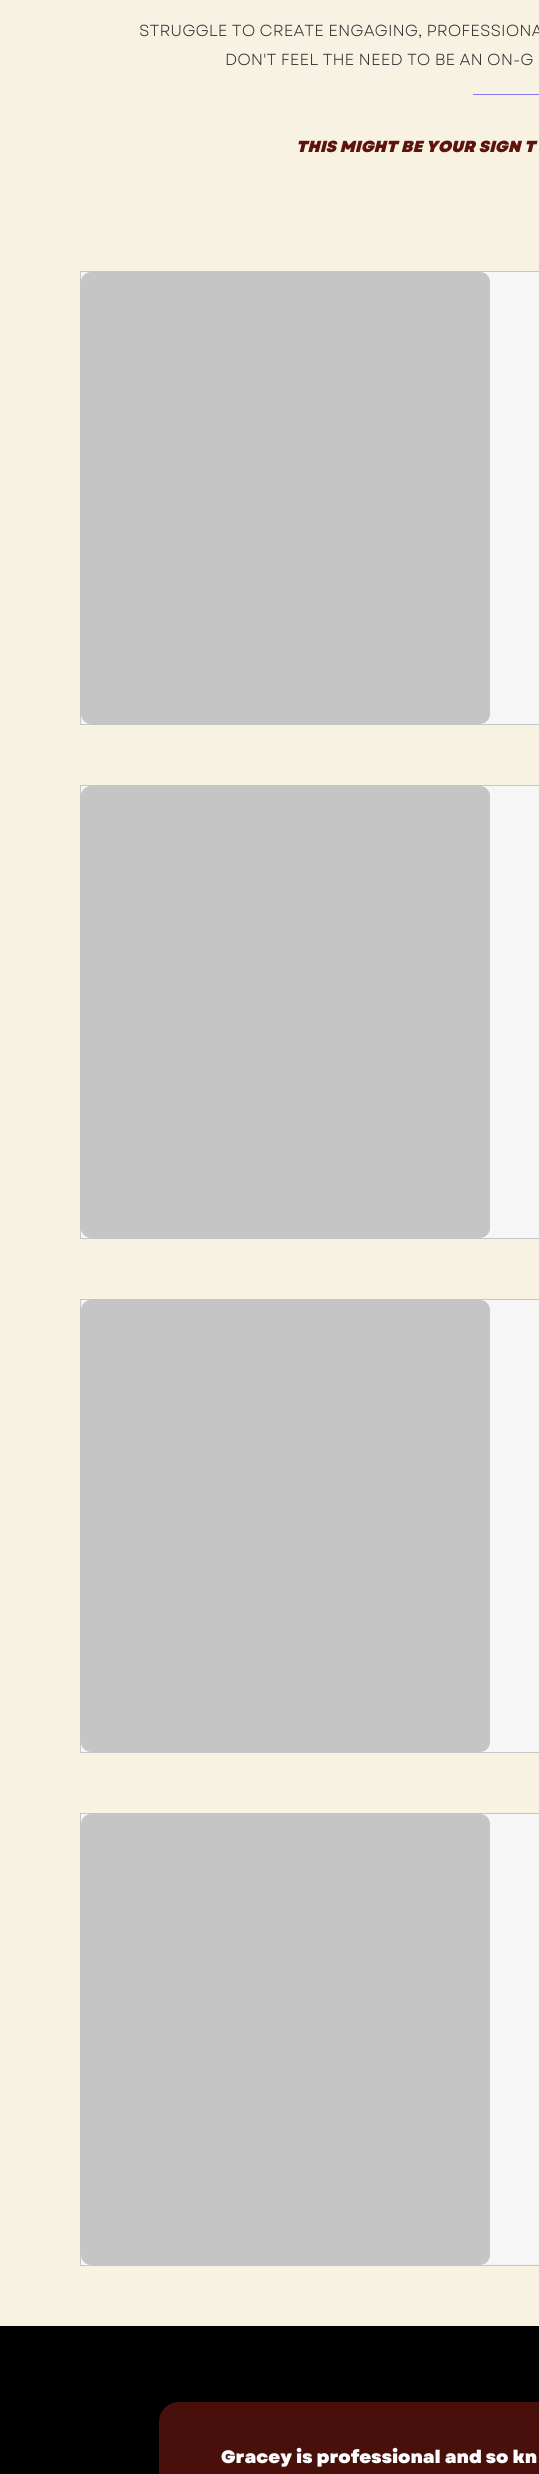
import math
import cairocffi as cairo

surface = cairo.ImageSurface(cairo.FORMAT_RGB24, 539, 2474)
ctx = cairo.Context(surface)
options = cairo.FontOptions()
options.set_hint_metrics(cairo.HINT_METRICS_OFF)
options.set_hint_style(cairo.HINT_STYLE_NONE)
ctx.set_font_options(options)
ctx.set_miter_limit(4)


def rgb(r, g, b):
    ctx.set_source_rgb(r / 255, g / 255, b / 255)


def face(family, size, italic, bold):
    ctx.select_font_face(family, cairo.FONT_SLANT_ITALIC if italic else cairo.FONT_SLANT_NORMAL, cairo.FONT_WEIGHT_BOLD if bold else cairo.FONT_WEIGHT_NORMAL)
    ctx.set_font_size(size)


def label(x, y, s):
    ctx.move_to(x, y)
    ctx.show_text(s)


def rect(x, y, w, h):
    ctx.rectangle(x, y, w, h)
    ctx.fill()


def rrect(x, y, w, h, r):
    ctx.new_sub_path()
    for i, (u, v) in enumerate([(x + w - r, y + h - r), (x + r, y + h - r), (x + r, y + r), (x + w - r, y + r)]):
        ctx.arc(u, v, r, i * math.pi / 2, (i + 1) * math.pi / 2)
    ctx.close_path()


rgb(248, 242, 226)
ctx.paint()
face('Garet', 16, 0, 0)
rgb(50, 50, 50)
label(139, 36, 'STRUGGLE TO CREATE ENGAGING, PROFESSIONA')
label(225, 65, 'DON\'T FEEL THE NEED TO BE AN ON-G')
rgb(136, 120, 245)
rect(473, 94, 66, 1)
face('Garet Black', 16, 1, 0)
rgb(95, 19, 13)
label(296, 152, 'THIS MIGHT BE YOUR SIGN T')
rgb(246, 246, 246)
ctx.rectangle(80.5, 271.5, 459, 453)
ctx.fill_preserve()
rgb(197, 197, 197)
ctx.set_line_width(1)
ctx.stroke()
rrect(81, 272, 409, 452, 10)
ctx.fill()
rgb(246, 246, 246)
ctx.rectangle(80.5, 785.5, 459, 453)
ctx.fill_preserve()
rgb(197, 197, 197)
ctx.stroke()
rrect(81, 786, 409, 452, 10)
ctx.fill()
rgb(246, 246, 246)
ctx.rectangle(80.5, 1299.5, 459, 453)
ctx.fill_preserve()
rgb(197, 197, 197)
ctx.stroke()
rrect(81, 1300, 409, 452, 10)
ctx.fill()
rgb(246, 246, 246)
ctx.rectangle(80.5, 1813.5, 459, 452)
ctx.fill_preserve()
rgb(197, 197, 197)
ctx.stroke()
rrect(81, 1814, 409, 451, 10)
ctx.fill()
rgb(0, 0, 0)
rect(0, 2326, 539, 148)
rgb(73, 15, 10)
rrect(159, 2402, 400, 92, 20)
ctx.fill()
face('Garet Black', 18, 0, 0)
rgb(255, 255, 255)
label(221, 2463, 'Gracey is professional and so kn')
surface.write_to_png('render.png')
